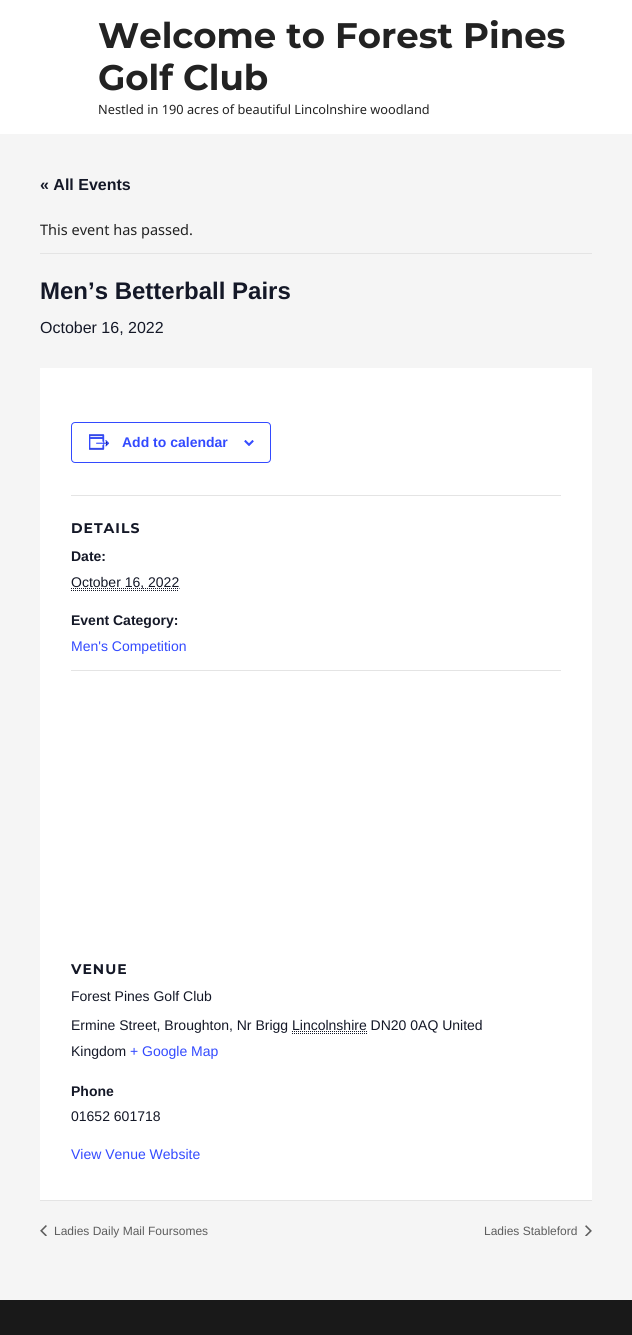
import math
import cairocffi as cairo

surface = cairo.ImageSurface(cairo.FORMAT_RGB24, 632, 1335)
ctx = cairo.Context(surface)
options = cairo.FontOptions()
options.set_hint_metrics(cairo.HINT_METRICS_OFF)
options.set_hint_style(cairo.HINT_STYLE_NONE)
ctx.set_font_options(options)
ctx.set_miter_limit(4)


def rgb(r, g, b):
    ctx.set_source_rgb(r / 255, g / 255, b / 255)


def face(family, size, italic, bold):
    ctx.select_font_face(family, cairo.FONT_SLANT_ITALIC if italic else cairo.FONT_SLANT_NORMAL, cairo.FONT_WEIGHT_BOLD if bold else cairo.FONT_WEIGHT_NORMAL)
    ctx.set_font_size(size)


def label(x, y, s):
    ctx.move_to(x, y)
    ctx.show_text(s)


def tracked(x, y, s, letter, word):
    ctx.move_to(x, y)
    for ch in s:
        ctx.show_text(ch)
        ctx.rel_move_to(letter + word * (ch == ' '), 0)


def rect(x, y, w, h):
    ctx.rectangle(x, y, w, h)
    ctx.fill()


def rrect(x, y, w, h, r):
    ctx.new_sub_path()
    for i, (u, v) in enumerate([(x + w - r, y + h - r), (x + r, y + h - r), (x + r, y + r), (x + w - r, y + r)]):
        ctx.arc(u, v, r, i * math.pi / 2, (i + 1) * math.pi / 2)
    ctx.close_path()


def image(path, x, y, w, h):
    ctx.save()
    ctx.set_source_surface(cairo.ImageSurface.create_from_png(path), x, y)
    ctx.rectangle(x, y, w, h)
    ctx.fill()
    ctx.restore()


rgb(245, 245, 245)
ctx.paint()
rgb(255, 255, 255)
rect(0, 0, 632, 134)
face('Montserrat Thin', 35.5, 0, 0)
rgb(34, 34, 34)
label(98, 48, 'Welcome to Forest Pines')
label(98, 90, 'Golf Club')
face('Noto Sans', 12.75, 0, 0)
label(98, 114, 'Nestled in 190 acres of beautiful Lincolnshire woodland')
face('Liberation Sans', 16, 0, 1)
rgb(20, 24, 39)
label(40, 190, '« All Events')
rgb(228, 228, 228)
rect(40, 253, 552, 1)
face('Noto Sans', 14.5, 0, 0)
rgb(34, 34, 34)
label(40, 235, 'This event has passed.')
face('Liberation Sans', 24, 0, 1)
rgb(20, 24, 39)
label(40, 299, 'Men’s Betterball Pairs')
face('Liberation Sans', 16, 0, 0)
label(40, 333, 'October 16, 2022')
rgb(255, 255, 255)
rect(40, 368, 552, 832)
rrect(71.5, 422.5, 199, 40, 3.5)
rgb(51, 74, 255)
ctx.set_line_width(1)
ctx.stroke()
image('image0.png', 89, 434, 21, 16)
face('Liberation Sans', 14, 0, 1)
label(122, 447, 'Add to calendar')
image('image1.png', 244, 440, 10, 6)
rgb(228, 228, 228)
rect(71, 495, 490, 1)
face('Montserrat Thin', 14, 0, 0)
rgb(20, 24, 39)
tracked(71, 533, 'DETAILS', 1, 0)
face('Liberation Sans', 14, 0, 1)
label(71, 561, 'Date:')
ctx.new_path()
ctx.move_to(71, 588.5)
ctx.line_to(179.5, 588.5)
ctx.set_dash([1, 1])
ctx.stroke()
face('Liberation Sans', 14, 0, 0)
label(71, 587, 'October 16, 2022')
ctx.new_path()
ctx.move_to(71, 590.5)
ctx.line_to(179, 590.5)
ctx.stroke()
face('Liberation Sans', 14, 0, 1)
label(71, 625, 'Event Category:')
face('Liberation Sans', 14, 0, 0)
rgb(51, 74, 255)
label(71, 651, 'Men\'s Competition')
rgb(228, 228, 228)
rect(71, 670, 490, 1)
face('Montserrat Thin', 14, 0, 0)
rgb(20, 24, 39)
tracked(71, 974, 'VENUE', 1, 0)
face('Liberation Sans', 14, 0, 0)
label(71, 1001, 'Forest Pines Golf Club')
label(71, 1030, 'Ermine Street, Broughton, Nr Brigg Lincolnshire DN20 0AQ United')
ctx.new_path()
ctx.move_to(292, 1033.5)
ctx.line_to(367, 1033.5)
ctx.stroke()
ctx.new_path()
ctx.move_to(292, 1031.5)
ctx.line_to(367, 1031.5)
ctx.stroke()
label(71, 1056, 'Kingdom')
rgb(51, 74, 255)
label(130, 1056, '+ Google Map')
face('Liberation Sans', 14, 0, 1)
rgb(20, 24, 39)
label(71, 1096, 'Phone')
face('Liberation Sans', 14, 0, 0)
label(71, 1121, '01652 601718')
rgb(51, 74, 255)
label(71, 1159, 'View Venue Website')
rgb(228, 228, 228)
rect(40, 1200, 552, 1)
image('image2.png', 40, 1225, 7, 11)
face('Liberation Sans', 12, 0, 0)
rgb(93, 93, 93)
label(54, 1235, 'Ladies Daily Mail Foursomes')
label(484, 1235, 'Ladies Stableford')
image('image3.png', 585, 1225, 7, 11)
rgb(25, 25, 25)
rect(0, 1300, 632, 35)
surface.write_to_png('render.png')
